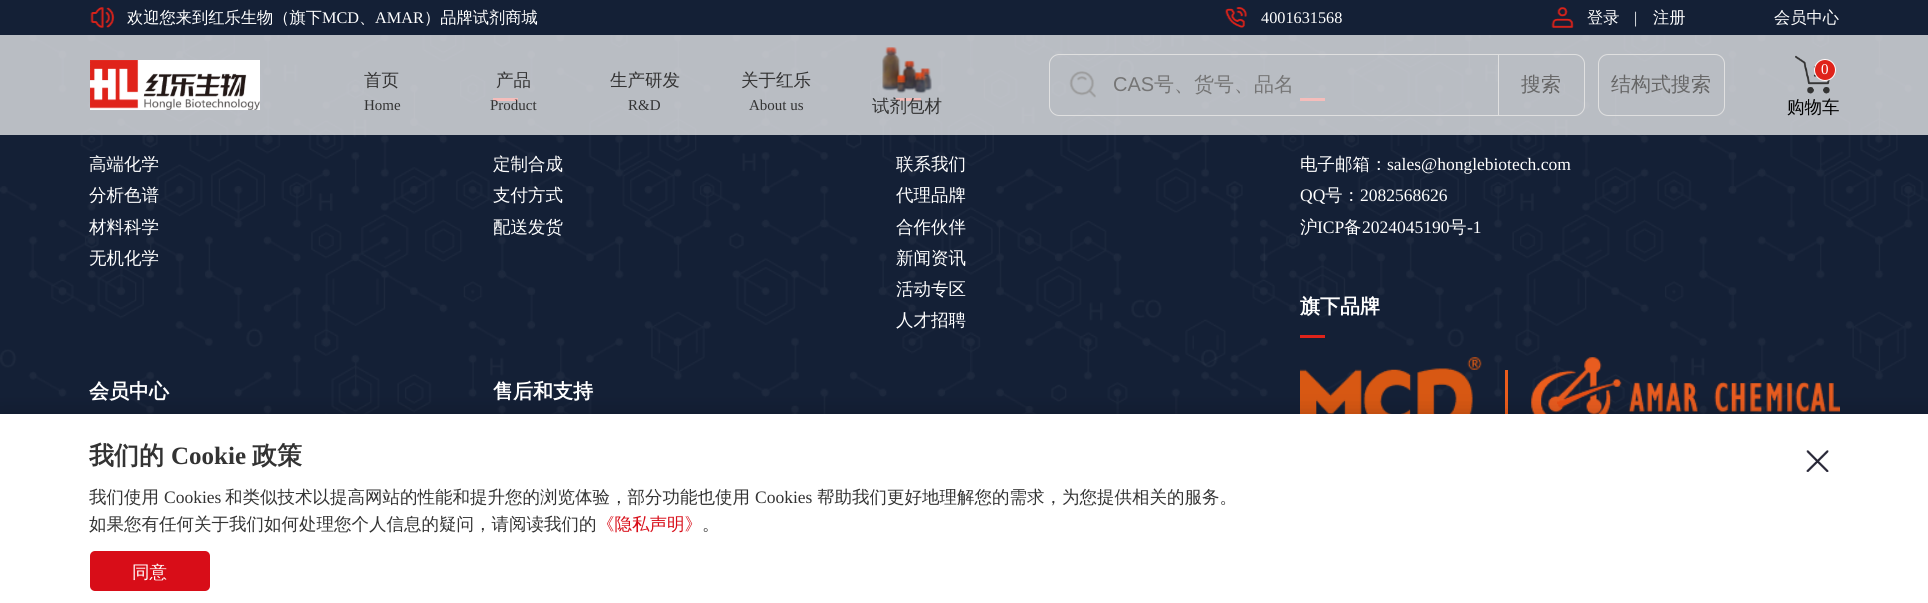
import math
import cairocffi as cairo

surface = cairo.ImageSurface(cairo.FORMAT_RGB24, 1928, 603)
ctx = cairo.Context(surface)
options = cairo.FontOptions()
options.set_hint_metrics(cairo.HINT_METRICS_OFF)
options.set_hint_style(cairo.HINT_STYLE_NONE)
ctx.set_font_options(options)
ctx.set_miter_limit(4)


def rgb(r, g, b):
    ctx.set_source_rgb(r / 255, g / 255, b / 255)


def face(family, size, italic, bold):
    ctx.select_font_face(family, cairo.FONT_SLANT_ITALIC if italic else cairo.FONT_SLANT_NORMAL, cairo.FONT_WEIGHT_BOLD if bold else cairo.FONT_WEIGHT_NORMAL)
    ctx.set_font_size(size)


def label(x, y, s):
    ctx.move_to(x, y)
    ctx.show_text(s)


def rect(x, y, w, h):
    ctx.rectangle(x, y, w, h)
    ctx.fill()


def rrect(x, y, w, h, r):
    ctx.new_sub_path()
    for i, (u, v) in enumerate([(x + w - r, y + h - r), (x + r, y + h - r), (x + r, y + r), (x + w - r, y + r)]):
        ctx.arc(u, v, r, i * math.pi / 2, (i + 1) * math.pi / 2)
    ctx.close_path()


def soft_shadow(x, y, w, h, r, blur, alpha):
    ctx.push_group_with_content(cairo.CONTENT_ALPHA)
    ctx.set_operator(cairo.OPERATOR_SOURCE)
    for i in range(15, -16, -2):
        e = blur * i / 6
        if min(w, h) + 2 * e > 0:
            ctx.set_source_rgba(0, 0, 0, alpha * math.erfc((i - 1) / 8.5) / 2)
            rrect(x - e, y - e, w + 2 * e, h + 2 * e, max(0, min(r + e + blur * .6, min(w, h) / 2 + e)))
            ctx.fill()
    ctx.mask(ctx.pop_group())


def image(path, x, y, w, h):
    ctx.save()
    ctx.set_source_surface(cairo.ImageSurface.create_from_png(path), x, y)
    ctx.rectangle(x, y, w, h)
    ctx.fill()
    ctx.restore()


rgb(20, 32, 54)
ctx.paint()
image('image0.png', 90, 7, 25, 21)
face('WenQuanYi Zen Hei Medium', 16.25, 0, 0)
rgb(255, 255, 255)
label(127, 23, '欢迎您来到红乐生物（旗下')
face('Liberation Serif', 16.25, 0, 0)
label(322, 23, 'MCD')
face('WenQuanYi Zen Hei Medium', 16.25, 0, 0)
label(359, 23, '、')
face('Liberation Serif', 16.25, 0, 0)
label(375, 23, 'AMAR')
face('WenQuanYi Zen Hei Medium', 16.25, 0, 0)
label(424, 23, '）品牌试剂商城')
image('image1.png', 1225, 7, 22, 21)
face('Liberation Serif', 16.25, 0, 0)
label(1261, 23, '4001631568')
image('image2.png', 1551, 7, 23, 21)
face('WenQuanYi Zen Hei Medium', 16.25, 0, 0)
label(1587, 23, '登录')
face('Liberation Serif', 16.25, 0, 0)
label(1634, 23, '|')
face('WenQuanYi Zen Hei Medium', 16.25, 0, 0)
label(1653, 23, '注册')
label(1774, 23, '会员中心')
image('image8.png', 0, 35, 1928, 379)
rgb(223, 35, 26)
rect(493, 98, 25, 3)
rect(896, 98, 25, 3)
rect(1300, 98, 25, 3)
ctx.set_source_rgba(1, 1, 1, 0.7)
rect(0, 35, 1928, 100)
image('image3.png', 90, 60, 170, 50)
face('WenQuanYi Zen Hei Medium', 17.5, 0, 0)
rgb(51, 51, 51)
label(364, 86, '首页')
face('Liberation Serif', 15, 0, 0)
label(364, 110, 'Home')
face('WenQuanYi Zen Hei Medium', 17.5, 0, 0)
label(496, 86, '产品')
face('Liberation Serif', 15, 0, 0)
label(490, 110, 'Product')
face('WenQuanYi Zen Hei Medium', 17.5, 0, 0)
label(610, 86, '生产研发')
face('Liberation Serif', 15, 0, 0)
label(628, 110, 'R&D')
face('WenQuanYi Zen Hei Medium', 17.5, 0, 0)
label(741, 86, '关于红乐')
face('Liberation Serif', 15, 0, 0)
label(749, 110, 'About us')
image('image4.png', 882, 47, 50, 47)
face('WenQuanYi Zen Hei Medium', 17.5, 0, 0)
label(872, 112, '试剂包材')
ctx.new_path()
ctx.move_to(1059, 54.5)
ctx.line_to(1498.5, 54.5)
ctx.line_to(1498.5, 115.5)
ctx.line_to(1059, 115.5)
ctx.curve_to(1054, 115.5, 1049.5, 111, 1049.5, 106)
ctx.line_to(1049.5, 64)
ctx.curve_to(1049.5, 59, 1054, 54.5, 1059, 54.5)
ctx.close_path()
rgb(224, 224, 224)
ctx.set_line_width(1)
ctx.stroke()
image('image5.png', 1069, 71, 27, 27)
face('Liberation Sans', 20, 0, 0)
rgb(117, 117, 117)
label(1113, 91, 'CAS')
face('WenQuanYi Zen Hei Medium', 20, 0, 0)
label(1154, 91, '号、货号、品名')
ctx.new_path()
ctx.move_to(1498.5, 54.5)
ctx.line_to(1575, 54.5)
ctx.curve_to(1580, 54.5, 1584.5, 59, 1584.5, 64)
ctx.line_to(1584.5, 106)
ctx.curve_to(1584.5, 111, 1580, 115.5, 1575, 115.5)
ctx.line_to(1498.5, 115.5)
ctx.close_path()
rgb(224, 224, 224)
ctx.stroke()
rgb(102, 102, 102)
label(1521, 91, '搜索')
rrect(1598.5, 54.5, 126, 61, 9.5)
rgb(224, 224, 224)
ctx.stroke()
rgb(102, 102, 102)
label(1611, 91, '结构式搜索')
image('image6.png', 1795, 55, 35, 39)
rgb(223, 35, 26)
ctx.arc(1825, 70, 10.5, 0, 2 * math.pi)
ctx.fill_preserve()
rgb(255, 255, 255)
ctx.stroke()
face('Liberation Serif', 15, 0, 0)
label(1821, 74, '0')
face('WenQuanYi Zen Hei Medium', 17.5, 0, 0)
rgb(0, 0, 0)
label(1787, 113, '购物车')
image('image9.png', 1300, 357, 182, 57)
rgb(235, 93, 28)
rect(1505, 370, 3, 50)
image('image10.png', 1531, 357, 309, 57)
rgb(0, 0, 0)
soft_shadow(0, 414, 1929, 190, 0, 11, 0.2)
rgb(255, 255, 255)
rect(0, 414, 1928, 189)
face('WenQuanYi Zen Hei', 25, 0, 1)
rgb(51, 51, 51)
label(89, 464, '我们的')
face('Liberation Serif', 25, 0, 1)
label(171, 464, 'Cookie')
face('WenQuanYi Zen Hei', 25, 0, 1)
label(252, 464, '政策')
image('image7.png', 1806, 450, 23, 22)
face('WenQuanYi Zen Hei Medium', 17.5, 0, 0)
label(89, 503, '我们使用')
face('Liberation Serif', 17.5, 0, 0)
label(164, 503, 'Cookies')
face('WenQuanYi Zen Hei Medium', 17.5, 0, 0)
label(225, 503, '和类似技术以提高网站的性能和提升您的浏览体验，部分功能也使用')
face('Liberation Serif', 17.5, 0, 0)
label(755, 503, 'Cookies')
face('WenQuanYi Zen Hei Medium', 17.5, 0, 0)
label(817, 503, '帮助我们更好地理解您的需求，为您提供相关的服务。')
label(89, 530, '如果您有任何关于我们如何处理您个人信息的疑问，请阅读我们的')
rgb(216, 13, 24)
label(597, 530, '《隐私声明》')
rgb(51, 51, 51)
label(702, 530, '。')
rgb(216, 13, 24)
rrect(90, 551, 120, 40, 5)
ctx.fill()
rgb(255, 255, 255)
label(132, 578, '同意')
label(89, 170, '高端化学')
label(89, 201, '分析色谱')
label(89, 233, '材料科学')
label(89, 264, '无机化学')
label(493, 170, '定制合成')
label(493, 201, '支付方式')
label(493, 233, '配送发货')
label(896, 170, '联系我们')
label(896, 201, '代理品牌')
label(896, 233, '合作伙伴')
label(896, 264, '新闻资讯')
label(896, 295, '活动专区')
label(896, 326, '人才招聘')
face('WenQuanYi Zen Hei', 20, 0, 1)
label(89, 398, '会员中心')
label(493, 398, '售后和支持')
face('WenQuanYi Zen Hei Medium', 17.5, 0, 0)
label(1300, 170, '电子邮箱：')
face('Liberation Serif', 17.5, 0, 0)
label(1387, 170, 'sales@honglebiotech.com')
label(1300, 201, 'QQ')
face('WenQuanYi Zen Hei Medium', 17.5, 0, 0)
label(1325, 201, '号：')
face('Liberation Serif', 17.5, 0, 0)
label(1360, 201, '2082568626')
face('WenQuanYi Zen Hei Medium', 17.5, 0, 0)
label(1300, 233, '沪')
face('Liberation Serif', 17.5, 0, 0)
label(1317, 233, 'ICP')
face('WenQuanYi Zen Hei Medium', 17.5, 0, 0)
label(1344, 233, '备')
face('Liberation Serif', 17.5, 0, 0)
label(1362, 233, '2024045190')
face('WenQuanYi Zen Hei Medium', 17.5, 0, 0)
label(1449, 233, '号')
face('Liberation Serif', 17.5, 0, 0)
label(1467, 233, '-1')
face('WenQuanYi Zen Hei', 20, 0, 1)
label(1300, 313, '旗下品牌')
rgb(223, 35, 26)
rect(1300, 335, 25, 3)
surface.write_to_png('render.png')
